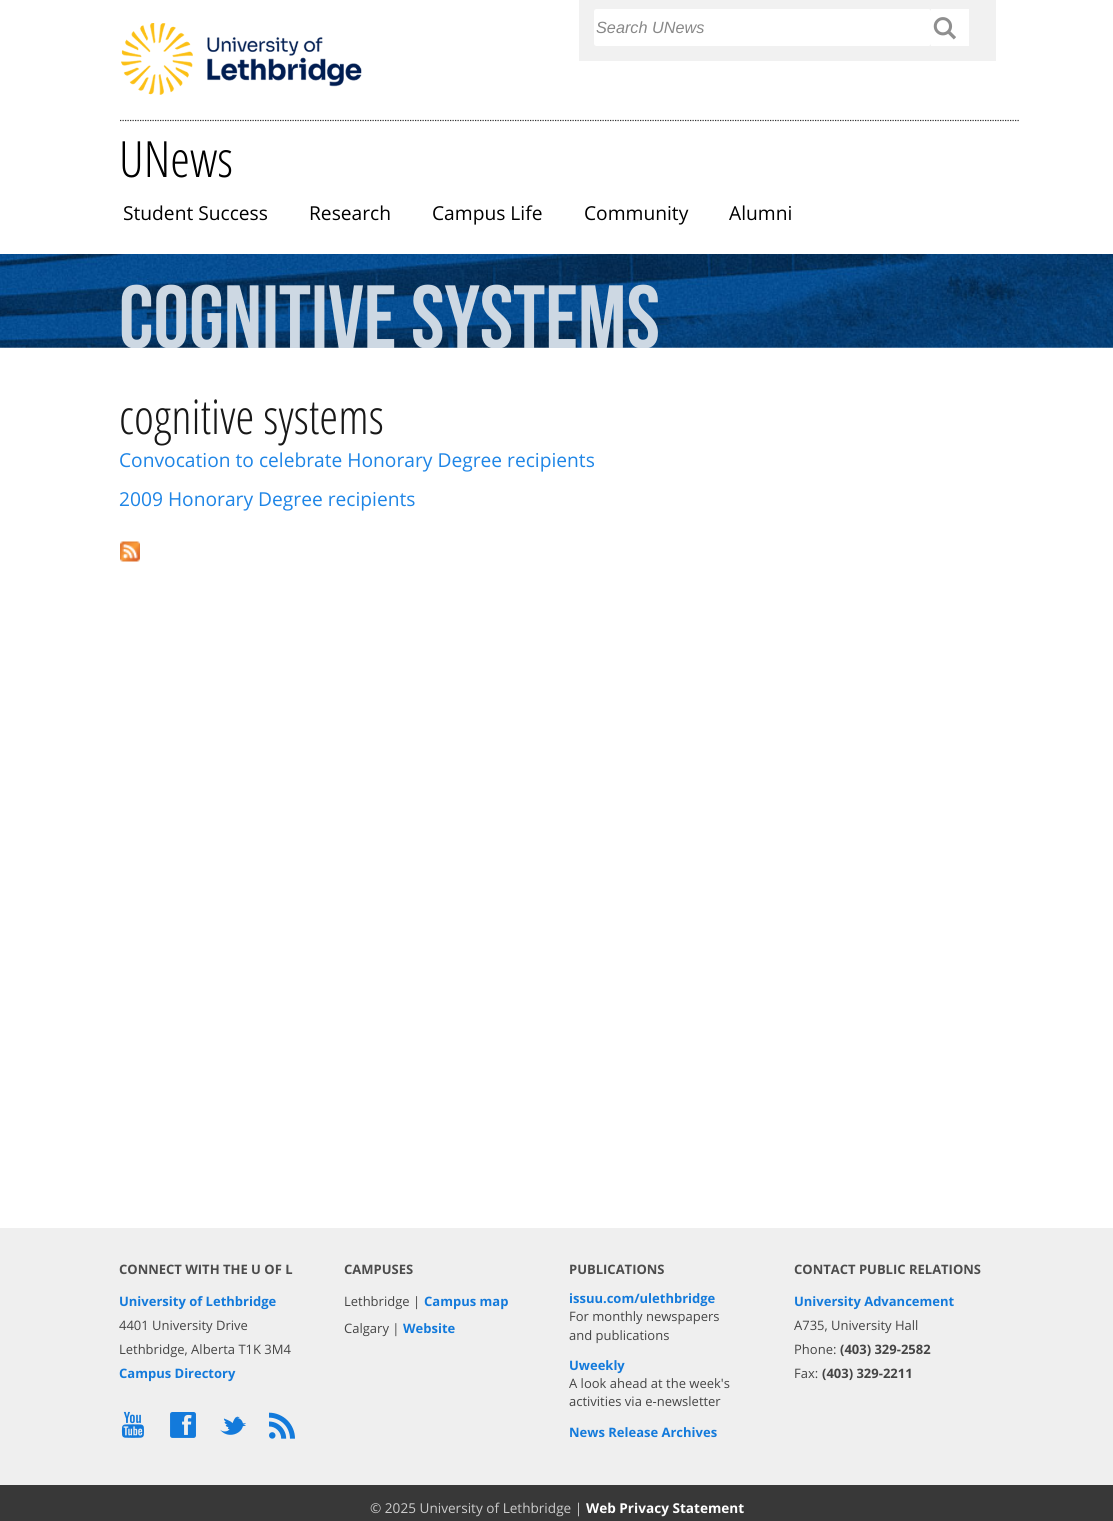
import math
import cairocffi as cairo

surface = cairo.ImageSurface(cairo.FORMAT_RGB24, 1113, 1521)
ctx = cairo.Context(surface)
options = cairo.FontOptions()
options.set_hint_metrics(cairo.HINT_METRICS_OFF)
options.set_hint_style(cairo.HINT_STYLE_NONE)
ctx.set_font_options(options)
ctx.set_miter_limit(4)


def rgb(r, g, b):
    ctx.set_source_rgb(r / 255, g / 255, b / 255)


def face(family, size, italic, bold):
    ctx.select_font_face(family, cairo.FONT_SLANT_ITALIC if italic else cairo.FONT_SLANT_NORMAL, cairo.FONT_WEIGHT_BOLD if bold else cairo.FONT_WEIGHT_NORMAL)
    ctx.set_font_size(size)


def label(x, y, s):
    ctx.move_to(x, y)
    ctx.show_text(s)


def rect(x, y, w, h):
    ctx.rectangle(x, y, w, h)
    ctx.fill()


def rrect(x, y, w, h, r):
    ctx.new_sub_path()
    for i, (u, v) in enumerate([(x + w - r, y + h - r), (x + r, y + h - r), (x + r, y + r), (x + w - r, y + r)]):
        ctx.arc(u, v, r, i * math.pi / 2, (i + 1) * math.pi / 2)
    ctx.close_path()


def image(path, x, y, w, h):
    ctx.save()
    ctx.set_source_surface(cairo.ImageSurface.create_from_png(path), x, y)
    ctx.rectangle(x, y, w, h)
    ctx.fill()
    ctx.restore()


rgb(255, 255, 255)
ctx.paint()
rgb(241, 241, 241)
rect(579, 0, 417, 61)
rgb(255, 255, 255)
rrect(594, 9, 337, 37, 2.5)
ctx.fill()
face('Liberation Sans', 16.25, 1, 0)
rgb(136, 136, 136)
label(596, 33, 'Search UNews')
rgb(255, 255, 255)
rect(931, 9, 38, 37)
image('image0.png', 933, 17, 23, 23)
image('image1.png', 121, 23, 241, 72)
ctx.new_path()
ctx.move_to(120, 120.5)
ctx.line_to(1020, 120.5)
rgb(51, 51, 51)
ctx.set_line_width(1.2)
ctx.set_dash([1.25, 1.25])
ctx.stroke()
face('Open Sans Light', 50, 0, 0)
rgb(0, 0, 0)
label(119, 177, 'UNews')
face('Open Sans', 19.2, 0, 0)
label(123, 220, 'Student Success')
label(309, 220, 'Research')
label(432, 220, 'Campus Life')
label(584, 220, 'Community')
label(729, 220, 'Alumni')
image('image2.png', 0, 254, 1113, 94)
ctx.save()
ctx.rectangle(0, 254, 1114, 94)
ctx.clip()
face('Bebas Neue', 89.5, 0, 0)
rgb(205, 216, 227)
label(119, 348, 'cognitive')
label(411, 348, 'systems')
ctx.restore()
face('Open Sans Light', 48, 0, 0)
rgb(24, 24, 24)
label(119, 434, 'cognitive systems')
face('Open Sans', 19.2, 0, 0)
rgb(30, 133, 230)
label(119, 467, 'Convocation to celebrate Honorary Degree recipients')
label(119, 506, '2009 Honorary Degree recipients')
image('image3.png', 120, 541, 20, 21)
rgb(239, 239, 239)
rect(0, 1228, 1113, 257)
face('Open Sans', 13, 0, 1)
rgb(76, 76, 76)
label(119, 1274, 'CONNECT WITH THE U OF L')
rgb(19, 122, 219)
label(119, 1306, 'University of Lethbridge')
face('Open Sans', 13, 0, 0)
rgb(68, 68, 68)
label(119, 1330, '4401 University Drive')
label(119, 1354, 'Lethbridge, Alberta T1K 3M4')
face('Open Sans', 13, 0, 1)
rgb(19, 122, 219)
label(119, 1378, 'Campus Directory')
image('image4.png', 121, 1411, 23, 27)
image('image5.png', 170, 1412, 26, 26)
image('image6.png', 220, 1416, 26, 19)
face('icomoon', 26, 0, 0)
label(269, 1437, '⇱')
face('Open Sans', 13, 0, 1)
rgb(76, 76, 76)
label(344, 1274, 'CAMPUSES')
face('Open Sans', 13, 0, 0)
rgb(68, 68, 68)
label(344, 1306, 'Lethbridge |')
face('Open Sans', 13, 0, 1)
rgb(19, 122, 219)
label(424, 1306, 'Campus map')
face('Open Sans', 13, 0, 0)
rgb(68, 68, 68)
label(344, 1333, 'Calgary |')
face('Open Sans', 13, 0, 1)
rgb(19, 122, 219)
label(403, 1333, 'Website')
rgb(76, 76, 76)
label(569, 1274, 'PUBLICATIONS')
rgb(19, 122, 219)
label(569, 1303, 'issuu.com/ulethbridge')
face('Open Sans', 13, 0, 0)
rgb(68, 68, 68)
label(569, 1321, 'For monthly newspapers')
label(569, 1340, 'and publications')
face('Open Sans', 13, 0, 1)
rgb(19, 122, 219)
label(569, 1370, 'Uweekly')
face('Open Sans', 13, 0, 0)
rgb(68, 68, 68)
label(569, 1388, 'A look ahead at the week\'s')
label(569, 1406, 'activities via e-newsletter')
face('Open Sans', 13, 0, 1)
rgb(19, 122, 219)
label(569, 1437, 'News Release Archives')
rgb(76, 76, 76)
label(794, 1274, 'CONTACT PUBLIC RELATIONS')
rgb(19, 122, 219)
label(794, 1306, 'University Advancement')
face('Open Sans', 13, 0, 0)
rgb(68, 68, 68)
label(794, 1330, 'A735, University Hall')
label(794, 1354, 'Phone:')
face('Open Sans', 13, 0, 1)
label(840, 1354, '(403) 329-2582')
face('Open Sans', 13, 0, 0)
label(794, 1378, 'Fax:')
face('Open Sans', 13, 0, 1)
label(822, 1378, '(403) 329-2211')
rgb(56, 56, 56)
rect(0, 1485, 1113, 36)
face('Open Sans', 13.6, 0, 0)
rgb(204, 204, 204)
label(370, 1513, '© 2025 University of Lethbridge |')
face('Open Sans', 13.6, 0, 1)
rgb(255, 255, 255)
label(586, 1513, 'Web Privacy Statement')
surface.write_to_png('render.png')
